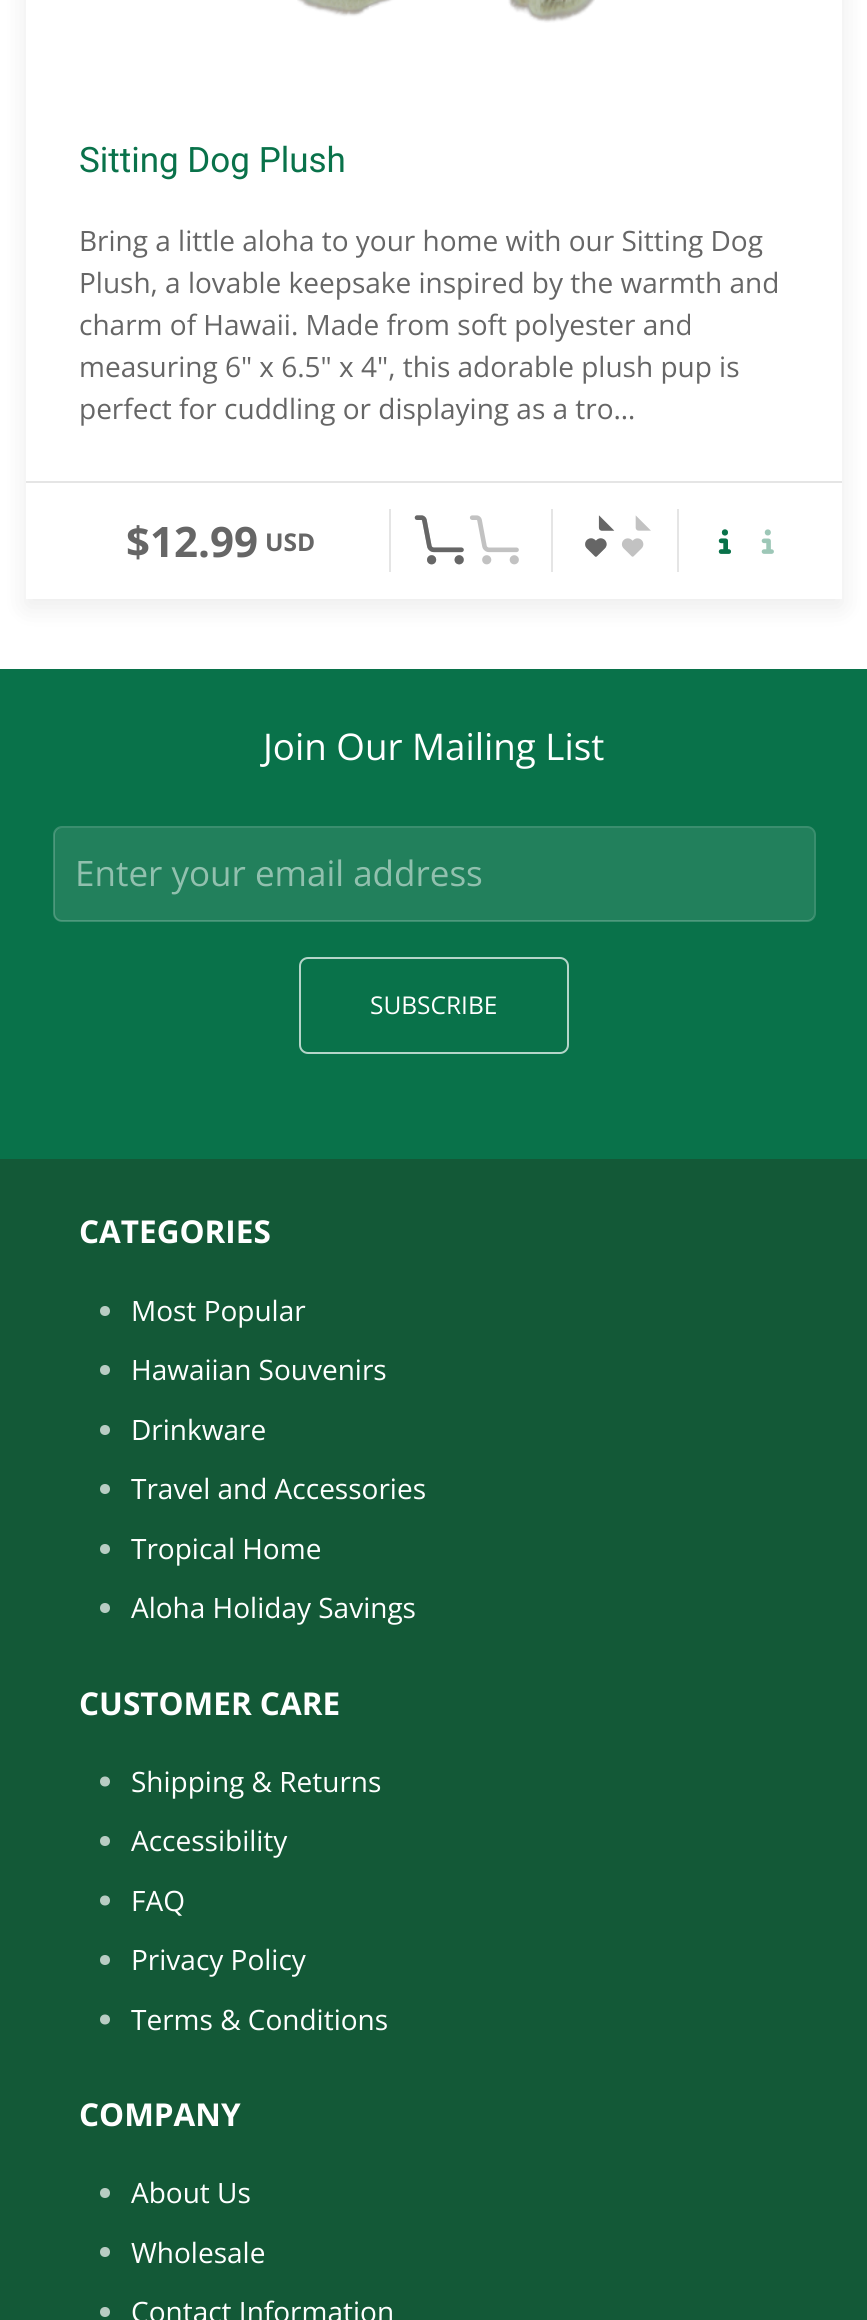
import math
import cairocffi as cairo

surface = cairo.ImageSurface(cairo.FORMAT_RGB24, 867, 2320)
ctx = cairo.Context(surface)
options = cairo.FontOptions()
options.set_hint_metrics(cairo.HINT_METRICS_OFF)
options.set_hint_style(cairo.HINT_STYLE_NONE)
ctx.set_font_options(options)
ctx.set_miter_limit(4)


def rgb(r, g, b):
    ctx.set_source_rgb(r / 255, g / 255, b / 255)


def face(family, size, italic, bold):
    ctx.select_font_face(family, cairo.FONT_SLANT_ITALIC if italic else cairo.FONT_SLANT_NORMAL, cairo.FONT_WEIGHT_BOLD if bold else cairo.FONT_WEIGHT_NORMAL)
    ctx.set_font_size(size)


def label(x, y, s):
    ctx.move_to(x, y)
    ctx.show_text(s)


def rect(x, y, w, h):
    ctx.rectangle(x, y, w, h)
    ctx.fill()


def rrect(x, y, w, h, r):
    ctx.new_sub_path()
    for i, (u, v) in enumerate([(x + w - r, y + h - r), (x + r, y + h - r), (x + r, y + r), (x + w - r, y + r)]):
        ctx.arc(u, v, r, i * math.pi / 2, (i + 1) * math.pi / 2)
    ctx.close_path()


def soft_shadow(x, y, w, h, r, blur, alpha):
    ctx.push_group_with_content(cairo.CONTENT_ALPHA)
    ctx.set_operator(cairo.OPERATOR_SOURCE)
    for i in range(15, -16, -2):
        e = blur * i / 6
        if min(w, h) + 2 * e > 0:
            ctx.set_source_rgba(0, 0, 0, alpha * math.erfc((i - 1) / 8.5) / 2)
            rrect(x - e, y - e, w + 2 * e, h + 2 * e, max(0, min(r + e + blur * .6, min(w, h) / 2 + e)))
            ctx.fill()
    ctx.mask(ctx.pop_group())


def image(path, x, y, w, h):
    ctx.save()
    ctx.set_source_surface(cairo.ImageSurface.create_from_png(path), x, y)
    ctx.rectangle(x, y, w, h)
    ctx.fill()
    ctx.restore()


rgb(255, 255, 255)
ctx.paint()
rgb(0, 0, 0)
soft_shadow(26, -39, 816, 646, 0, 13, 0.08)
rgb(255, 255, 255)
rect(26, 0, 816, 599)
image('image0.png', 297, 0, 298, 23)
face('Roboto', 35, 0, 0)
rgb(9, 114, 74)
label(79, 172, 'Sitting Dog Plush')
face('Open Sans', 28, 0, 0)
rgb(102, 102, 102)
label(79, 251, 'Bring a little aloha to your home with our Sitting Dog')
label(79, 293, 'Plush, a lovable keepsake inspired by the warmth and')
label(79, 335, 'charm of Hawaii. Made from soft polyester and')
label(79, 377, 'measuring 6" x 6.5" x 4", this adorable plush pup is')
label(79, 419, 'perfect for cuddling or displaying as a tro…')
rgb(229, 229, 229)
rect(26, 481, 816, 2)
face('Open Sans', 42, 0, 1)
rgb(102, 102, 102)
label(126, 557, '$12.99')
face('Open Sans', 24.5, 0, 1)
label(265, 551, 'USD')
rgb(229, 229, 229)
rect(389, 509, 2, 63)
image('image1.png', 414, 515, 50, 50)
image('image2.png', 414, 515, 105, 50)
rect(551, 509, 2, 63)
image('image3.png', 585, 515, 30, 42)
image('image4.png', 585, 515, 66, 42)
rect(677, 509, 2, 63)
image('image5.png', 718, 529, 13, 25)
image('image6.png', 718, 529, 56, 25)
rgb(9, 114, 74)
rect(0, 669, 867, 490)
face('Open Sans', 36.75, 0, 0)
rgb(255, 255, 255)
label(263, 760, 'Join Our Mailing List')
rgb(34, 128, 92)
rrect(54, 828, 760, 93, 7)
ctx.fill()
rrect(54, 827, 761, 94, 8)
ctx.set_source_rgba(1, 1, 1, 0.2)
ctx.stroke()
face('Open Sans', 35, 0, 0)
rgb(145, 192, 174)
label(75, 886, 'Enter your email address')
rrect(300, 958, 268, 95, 8)
rgb(181, 213, 201)
ctx.stroke()
face('Open Sans', 24.5, 0, 0)
rgb(255, 255, 255)
label(370, 1014, 'SUBSCRIBE')
rgb(19, 89, 55)
rect(0, 1159, 867, 1161)
face('Open Sans', 31.5, 0, 1)
rgb(255, 255, 255)
label(79, 1243, 'CATEGORIES')
rgb(184, 205, 195)
ctx.new_path()
ctx.arc(105, 1311, 5, 0, 2 * math.pi)
ctx.fill()
face('Open Sans', 28, 0, 0)
rgb(255, 255, 255)
label(131, 1321, 'Most Popular')
rgb(184, 205, 195)
ctx.new_path()
ctx.arc(105, 1370, 5, 0, 2 * math.pi)
ctx.fill()
rgb(255, 255, 255)
label(131, 1380, 'Hawaiian Souvenirs')
rgb(184, 205, 195)
ctx.new_path()
ctx.arc(105, 1430, 5, 0, 2 * math.pi)
ctx.fill()
rgb(255, 255, 255)
label(131, 1440, 'Drinkware')
rgb(184, 205, 195)
ctx.new_path()
ctx.arc(105, 1489, 5, 0, 2 * math.pi)
ctx.fill()
rgb(255, 255, 255)
label(131, 1499, 'Travel and Accessories')
rgb(184, 205, 195)
ctx.new_path()
ctx.arc(105, 1549, 5, 0, 2 * math.pi)
ctx.fill()
rgb(255, 255, 255)
label(131, 1559, 'Tropical Home')
rgb(184, 205, 195)
ctx.new_path()
ctx.arc(105, 1608, 5, 0, 2 * math.pi)
ctx.fill()
rgb(255, 255, 255)
label(131, 1618, 'Aloha Holiday Savings')
face('Open Sans', 31.5, 0, 1)
label(79, 1715, 'CUSTOMER CARE')
rgb(184, 205, 195)
ctx.new_path()
ctx.arc(105, 1781.5, 5, 0, 2 * math.pi)
ctx.fill()
face('Open Sans', 28, 0, 0)
rgb(255, 255, 255)
label(131, 1792, 'Shipping & Returns')
rgb(184, 205, 195)
ctx.new_path()
ctx.arc(105, 1841, 5, 0, 2 * math.pi)
ctx.fill()
rgb(255, 255, 255)
label(131, 1851, 'Accessibility')
rgb(184, 205, 195)
ctx.new_path()
ctx.arc(105, 1900.5, 5, 0, 2 * math.pi)
ctx.fill()
rgb(255, 255, 255)
label(131, 1911, 'FAQ')
rgb(184, 205, 195)
ctx.new_path()
ctx.arc(105, 1960, 5, 0, 2 * math.pi)
ctx.fill()
rgb(255, 255, 255)
label(131, 1970, 'Privacy Policy')
rgb(184, 205, 195)
ctx.new_path()
ctx.arc(105, 2019.5, 5, 0, 2 * math.pi)
ctx.fill()
rgb(255, 255, 255)
label(131, 2030, 'Terms & Conditions')
face('Open Sans', 31.5, 0, 1)
label(79, 2126, 'COMPANY')
rgb(184, 205, 195)
ctx.new_path()
ctx.arc(105, 2193, 5, 0, 2 * math.pi)
ctx.fill()
face('Open Sans', 28, 0, 0)
rgb(255, 255, 255)
label(131, 2203, 'About Us')
rgb(184, 205, 195)
ctx.new_path()
ctx.arc(105, 2252, 5, 0, 2 * math.pi)
ctx.fill()
rgb(255, 255, 255)
label(131, 2263, 'Wholesale')
rgb(184, 205, 195)
ctx.new_path()
ctx.arc(105, 2312, 5, 0, 2 * math.pi)
ctx.fill()
rgb(255, 255, 255)
label(131, 2322, 'Contact Information')
surface.write_to_png('render.png')
